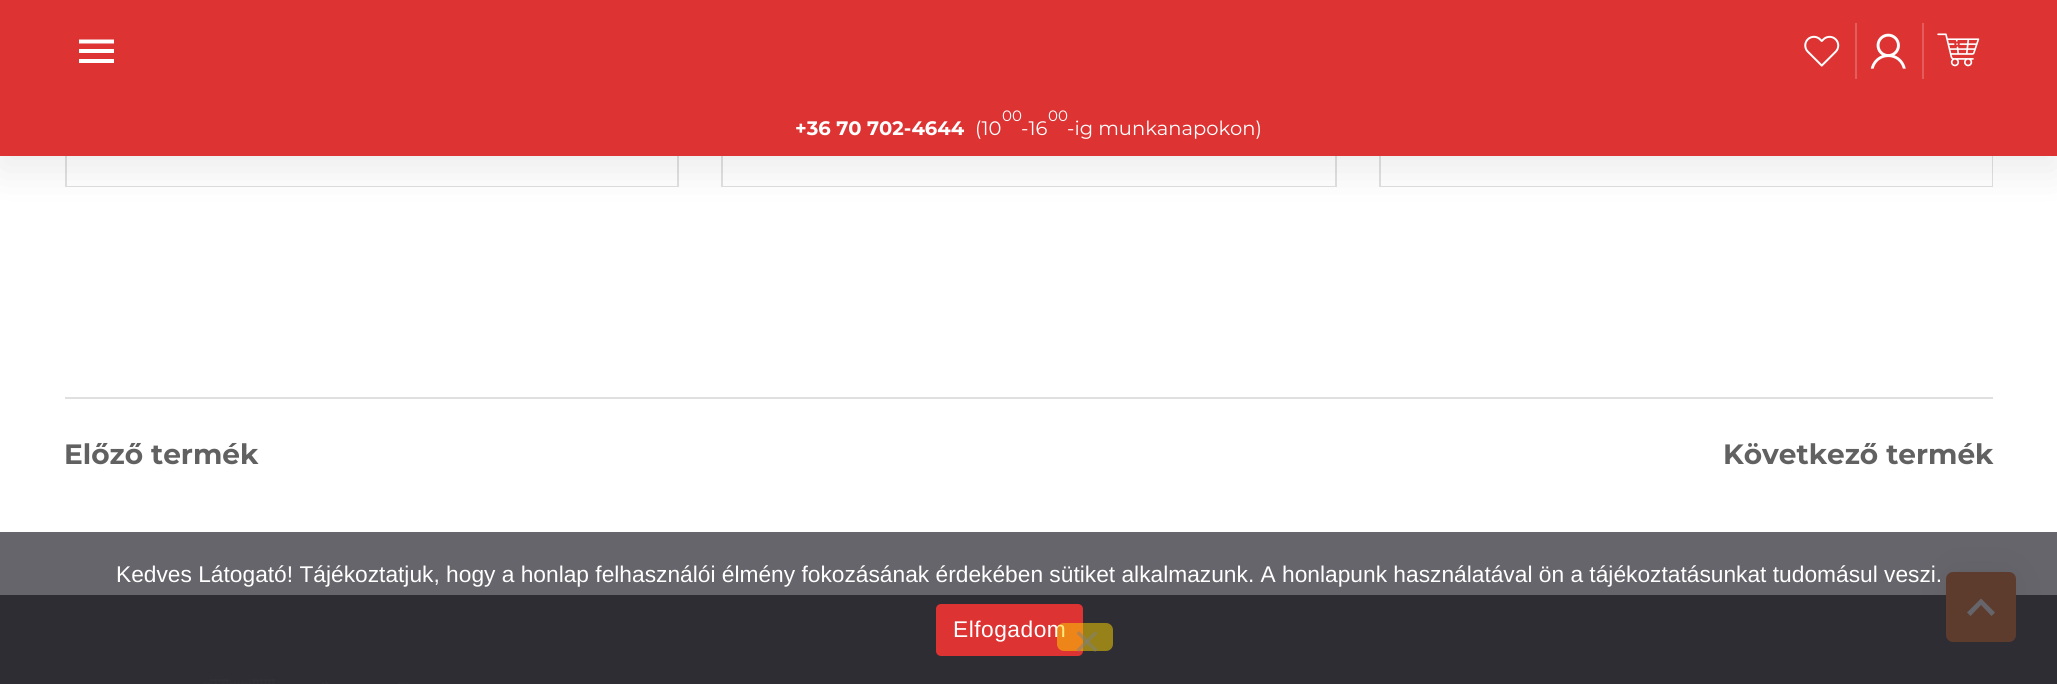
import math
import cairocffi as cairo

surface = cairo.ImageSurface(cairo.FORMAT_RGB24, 2057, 684)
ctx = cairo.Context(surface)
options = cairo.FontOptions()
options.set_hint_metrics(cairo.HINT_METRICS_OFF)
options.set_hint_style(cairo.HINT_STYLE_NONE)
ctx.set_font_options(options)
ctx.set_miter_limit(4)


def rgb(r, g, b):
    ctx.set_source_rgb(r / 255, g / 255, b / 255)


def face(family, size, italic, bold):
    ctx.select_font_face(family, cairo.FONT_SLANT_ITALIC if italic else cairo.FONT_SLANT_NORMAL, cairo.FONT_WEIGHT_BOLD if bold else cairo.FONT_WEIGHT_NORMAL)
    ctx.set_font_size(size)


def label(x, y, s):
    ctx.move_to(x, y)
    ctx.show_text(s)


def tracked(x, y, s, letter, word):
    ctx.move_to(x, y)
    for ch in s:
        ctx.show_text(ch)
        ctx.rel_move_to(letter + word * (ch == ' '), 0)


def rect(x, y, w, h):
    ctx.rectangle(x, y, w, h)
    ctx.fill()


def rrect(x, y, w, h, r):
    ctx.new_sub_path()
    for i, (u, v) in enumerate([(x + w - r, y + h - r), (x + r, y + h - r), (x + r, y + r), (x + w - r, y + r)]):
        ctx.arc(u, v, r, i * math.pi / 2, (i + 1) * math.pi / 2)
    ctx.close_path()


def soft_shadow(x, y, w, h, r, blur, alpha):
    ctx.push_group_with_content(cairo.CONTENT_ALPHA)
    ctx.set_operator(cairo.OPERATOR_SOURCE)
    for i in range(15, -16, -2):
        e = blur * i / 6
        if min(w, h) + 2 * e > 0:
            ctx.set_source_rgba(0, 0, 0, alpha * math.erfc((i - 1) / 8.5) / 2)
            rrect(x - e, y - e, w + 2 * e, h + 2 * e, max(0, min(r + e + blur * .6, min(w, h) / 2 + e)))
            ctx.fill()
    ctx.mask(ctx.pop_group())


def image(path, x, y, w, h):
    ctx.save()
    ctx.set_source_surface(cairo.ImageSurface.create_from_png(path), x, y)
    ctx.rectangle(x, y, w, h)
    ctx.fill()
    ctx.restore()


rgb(255, 255, 255)
ctx.paint()
ctx.rectangle(66, -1, 612, 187)
rgb(224, 224, 224)
ctx.stroke()
rgb(255, 255, 255)
rect(67, 185, 610, 1)
ctx.rectangle(722, -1, 614, 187)
rgb(224, 224, 224)
ctx.stroke()
rgb(255, 255, 255)
rect(723, 185, 612, 1)
ctx.rectangle(1380, -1, 612, 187)
rgb(224, 224, 224)
ctx.stroke()
rgb(255, 255, 255)
rect(1381, 156, 611, 30)
rgb(0, 0, 0)
soft_shadow(0, 14, 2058, 156, 0, 21, 0.08)
rgb(221, 51, 51)
rect(0, 0, 2057, 156)
rgb(255, 255, 255)
ctx.new_path()
ctx.move_to(79, 63)
ctx.line_to(114, 63)
ctx.line_to(114, 59)
ctx.line_to(79, 59)
ctx.close_path()
ctx.move_to(79, 53)
ctx.line_to(114, 53)
ctx.line_to(114, 49)
ctx.line_to(79, 49)
ctx.close_path()
ctx.move_to(79, 39.5)
ctx.line_to(79, 43.5)
ctx.line_to(114, 43.5)
ctx.line_to(114, 39.5)
ctx.close_path()
ctx.fill()
image('image0.png', 1804, 35, 36, 32)
rgb(228, 92, 92)
rect(1855, 23, 2, 56)
image('image1.png', 1870, 33, 36, 36)
rect(1922, 23, 2, 56)
image('image2.png', 1937, 33, 43, 34)
face('Montserrat', 15, 0, 0)
rgb(255, 255, 255)
label(1002, 121, '00')
label(1048, 121, '00')
face('Montserrat', 19.5, 0, 1)
label(795, 135, '+36 70 702-4644')
face('Montserrat', 19.5, 0, 0)
label(975, 135, '(10')
label(1021, 135, '-16')
label(1067, 135, '-ig munkanapokon)')
rgb(224, 224, 224)
rect(65, 397, 1928, 2)
face('Montserrat', 28, 0, 1)
rgb(97, 97, 97)
label(64, 464, 'Előző termék')
label(1723, 464, 'Következő termék')
rgb(33, 33, 33)
rect(0, 595, 2057, 89)
image('image3.png', 203, 679, 206, 5)
rgb(0, 0, 0)
soft_shadow(1946, 572, 70, 70, 7, 21, 0.08)
rgb(224, 92, 11)
rrect(1946, 572, 70, 70, 7)
ctx.fill()
rgb(255, 255, 255)
ctx.new_path()
ctx.move_to(1967, 612.5)
ctx.line_to(1970.5, 616)
ctx.line_to(1981, 605)
ctx.line_to(1991.5, 616)
ctx.line_to(1995, 612.5)
ctx.line_to(1981, 598.5)
ctx.close_path()
ctx.fill()
ctx.set_source_rgba(0.196, 0.196, 0.227, 0.75)
rect(0, 532, 2057, 152)
face('Liberation Sans', 22.75, 0, 0)
rgb(255, 255, 255)
label(116, 582, 'Kedves Látogató! Tájékoztatjuk, hogy a honlap felhasználói élmény fokozásának érdekében sütiket alkalmazunk. A honlapunk használatával ön a tájékoztatásunkat tudomásul veszi.')
rgb(221, 51, 51)
rrect(936, 604, 147, 52, 5)
ctx.fill()
rgb(255, 255, 255)
tracked(953, 637, 'Elfogadom', 0.5, 0)
ctx.set_source_rgba(1, 0.847, 0, 0.5)
rrect(1057, 623, 56, 28, 7)
ctx.fill()
ctx.set_source_rgba(0.502, 0.502, 0.502, 0.5)
ctx.new_path()
ctx.move_to(1095, 631)
ctx.line_to(1097.5, 633.5)
ctx.line_to(1079, 652)
ctx.line_to(1076.5, 649.5)
ctx.close_path()
ctx.fill()
ctx.new_path()
ctx.move_to(1076.5, 633.5)
ctx.line_to(1079, 631)
ctx.line_to(1097.5, 649.5)
ctx.line_to(1095, 652)
ctx.close_path()
ctx.fill()
surface.write_to_png('render.png')
